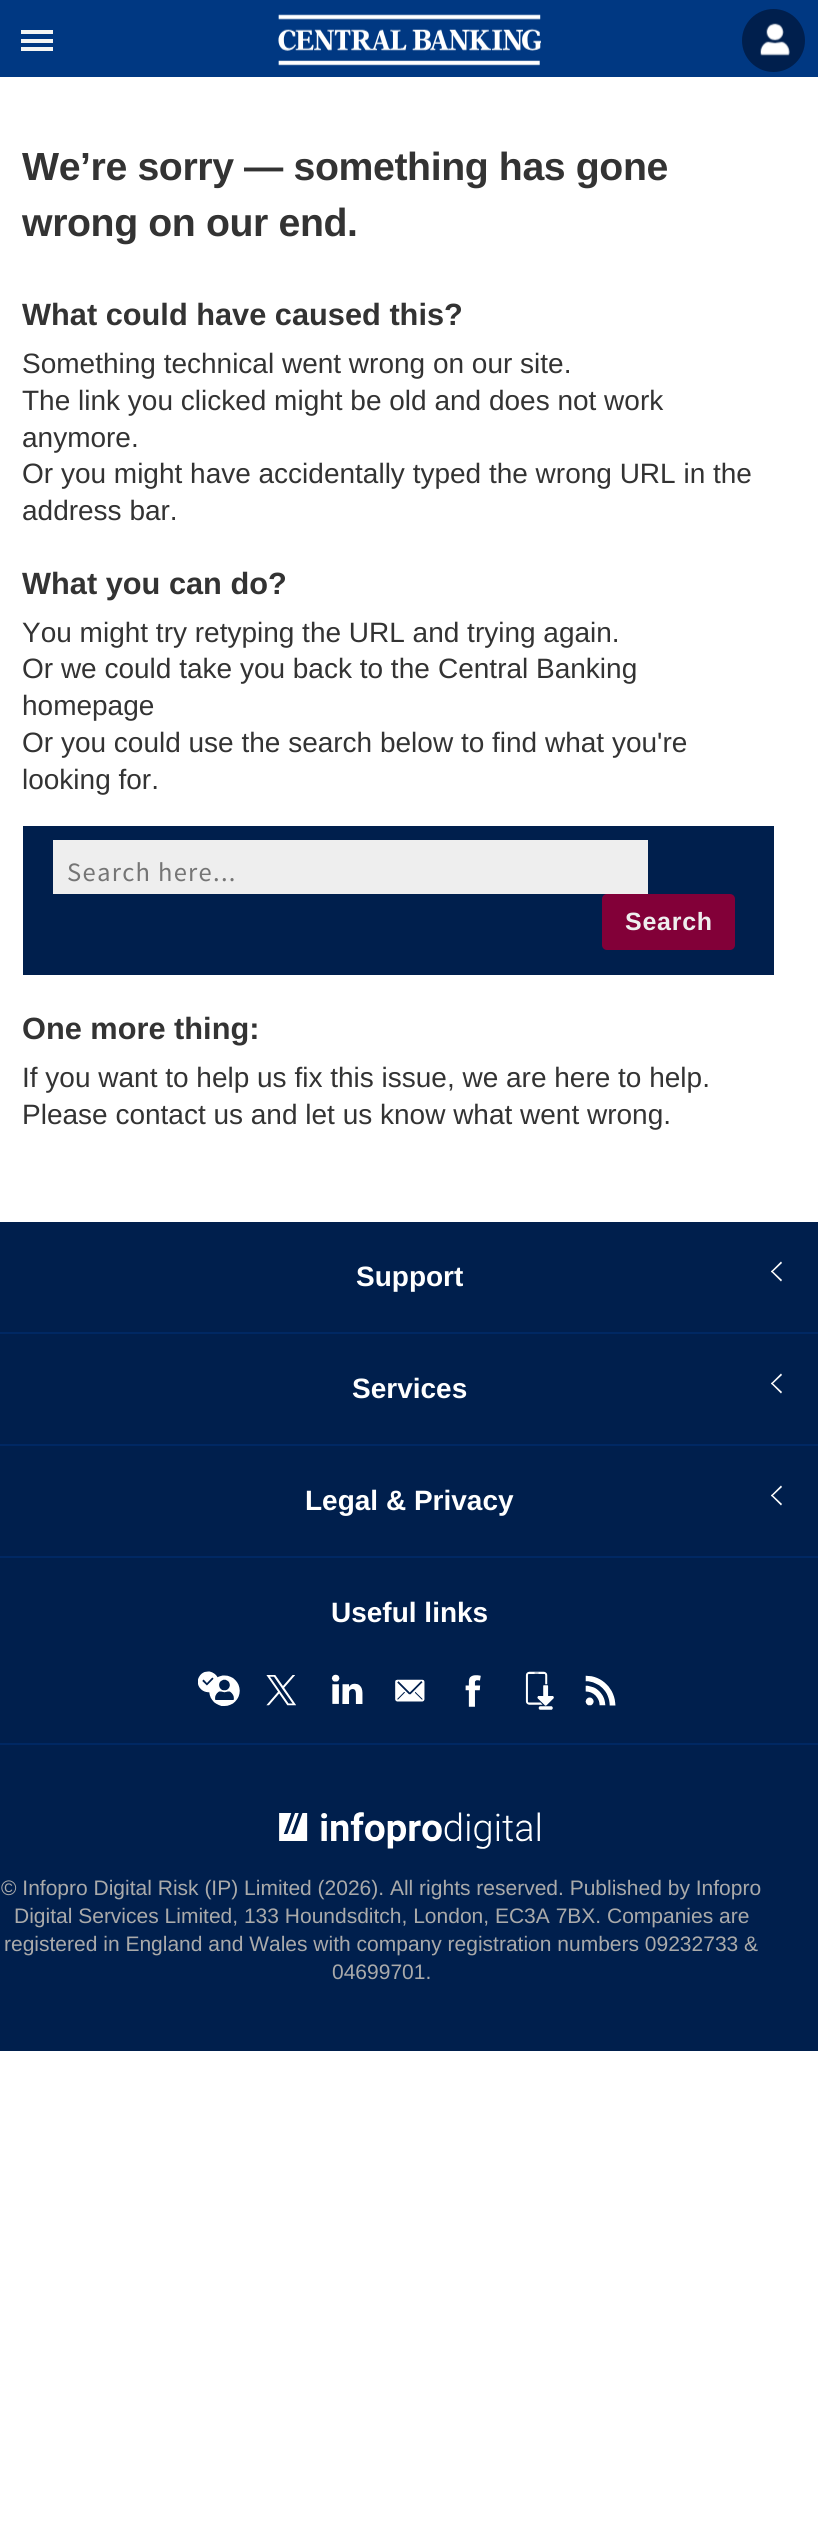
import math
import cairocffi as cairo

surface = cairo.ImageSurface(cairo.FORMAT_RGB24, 818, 2525)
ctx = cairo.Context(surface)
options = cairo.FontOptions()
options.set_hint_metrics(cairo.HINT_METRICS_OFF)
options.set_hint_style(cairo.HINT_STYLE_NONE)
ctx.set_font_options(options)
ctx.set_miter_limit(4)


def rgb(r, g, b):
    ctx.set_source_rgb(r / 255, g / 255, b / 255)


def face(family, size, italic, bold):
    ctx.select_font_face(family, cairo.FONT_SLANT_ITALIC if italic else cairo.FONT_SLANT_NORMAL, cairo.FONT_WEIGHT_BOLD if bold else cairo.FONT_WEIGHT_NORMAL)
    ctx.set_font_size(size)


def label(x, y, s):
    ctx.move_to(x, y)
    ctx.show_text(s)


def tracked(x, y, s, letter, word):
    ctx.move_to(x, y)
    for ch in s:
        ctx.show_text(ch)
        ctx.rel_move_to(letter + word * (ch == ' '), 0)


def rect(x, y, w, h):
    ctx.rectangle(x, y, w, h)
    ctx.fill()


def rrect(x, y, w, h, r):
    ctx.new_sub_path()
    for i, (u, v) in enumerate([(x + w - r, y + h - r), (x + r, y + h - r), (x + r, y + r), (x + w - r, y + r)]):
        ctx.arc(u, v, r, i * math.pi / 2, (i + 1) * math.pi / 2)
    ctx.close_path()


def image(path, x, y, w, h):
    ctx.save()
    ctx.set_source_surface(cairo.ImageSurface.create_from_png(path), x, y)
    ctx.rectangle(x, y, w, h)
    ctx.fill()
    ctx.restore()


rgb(255, 255, 255)
ctx.paint()
rgb(0, 56, 130)
rect(0, 0, 818, 77)
rgb(244, 245, 244)
rect(21, 39, 32, 4)
rect(21, 30, 32, 4)
rect(21, 47, 32, 4)
image('image0.png', 278, 14, 263, 52)
rgb(0, 31, 77)
ctx.arc(773.5, 40.5, 31.5, 0, 2 * math.pi)
ctx.fill()
image('image1.png', 760, 23, 30, 33)
face('Arimo', 39.25, 0, 1)
rgb(51, 51, 51)
tracked(22, 180, 'We’re sorry — something has gone', -0.4, 0)
tracked(22, 236, 'wrong on our end.', -0.4, 0)
face('Arimo', 30.75, 0, 1)
label(22, 325, 'What could have caused this?')
face('Arimo', 28, 0, 0)
label(22, 373, 'Something technical went wrong on our site.')
label(22, 410, 'The link you clicked might be old and does not work')
label(22, 447, 'anymore.')
label(22, 483, 'Or you might have accidentally typed the wrong URL in the')
label(22, 520, 'address bar.')
face('Arimo', 30.75, 0, 1)
label(22, 594, 'What you can do?')
face('Arimo', 28, 0, 0)
label(22, 642, 'You might try retyping the URL and trying again.')
label(22, 678, 'Or we could take you back to the')
label(438, 678, 'Central Banking')
label(22, 715, 'homepage')
label(22, 752, 'Or you could use the search below to find what you\'re')
label(22, 789, 'looking for.')
rgb(0, 31, 77)
rect(23, 826, 751, 149)
rgb(238, 238, 238)
rect(53, 840, 595, 54)
face('Source Sans Pro', 26.5, 0, 0)
rgb(117, 117, 117)
tracked(67, 881, 'Search here...', 1.3, 0)
rgb(130, 0, 56)
rrect(602, 894, 133, 56, 5)
ctx.fill()
face('Arimo', 25, 0, 1)
rgb(238, 238, 238)
tracked(625, 930, 'Search', 0.75, 0)
face('Arimo', 30.75, 0, 1)
rgb(51, 51, 51)
label(22, 1039, 'One more thing:')
face('Arimo', 28, 0, 0)
label(22, 1087, 'If you want to help us fix this issue, we are here to help.')
label(22, 1124, 'Please contact us and let us know what went wrong.')
rgb(0, 31, 77)
rect(0, 1222, 818, 829)
rgb(0, 40, 99)
rect(0, 1332, 818, 2)
face('Arimo', 28, 0, 1)
rgb(255, 255, 255)
label(356, 1286, 'Support')
ctx.new_path()
ctx.move_to(782, 1280)
ctx.line_to(781, 1281.5)
ctx.line_to(771, 1271.5)
ctx.line_to(772, 1270.5)
ctx.close_path()
ctx.fill()
ctx.new_path()
ctx.move_to(782, 1263)
ctx.line_to(772, 1272.5)
ctx.line_to(771, 1271.5)
ctx.line_to(781, 1261.5)
ctx.close_path()
ctx.fill()
rgb(0, 40, 99)
rect(0, 1444, 818, 2)
rgb(255, 255, 255)
label(352, 1398, 'Services')
ctx.new_path()
ctx.move_to(782, 1392)
ctx.line_to(781, 1393.5)
ctx.line_to(771, 1383.5)
ctx.line_to(772, 1382.5)
ctx.close_path()
ctx.fill()
ctx.new_path()
ctx.move_to(782, 1375)
ctx.line_to(772, 1384.5)
ctx.line_to(771, 1383.5)
ctx.line_to(781, 1373.5)
ctx.close_path()
ctx.fill()
rgb(0, 40, 99)
rect(0, 1556, 818, 2)
rgb(255, 255, 255)
label(305, 1510, 'Legal & Privacy')
ctx.new_path()
ctx.move_to(782, 1504)
ctx.line_to(781, 1505.5)
ctx.line_to(771, 1495.5)
ctx.line_to(772, 1494.5)
ctx.close_path()
ctx.fill()
ctx.new_path()
ctx.move_to(782, 1487)
ctx.line_to(772, 1496.5)
ctx.line_to(771, 1495.5)
ctx.line_to(781, 1485.5)
ctx.close_path()
ctx.fill()
label(331, 1622, 'Useful links')
image('image2.png', 198, 1671, 42, 35)
image('image3.png', 266, 1675, 30, 31)
image('image4.png', 331, 1674, 32, 30)
image('image5.png', 395, 1679, 30, 23)
image('image6.png', 465, 1675, 16, 32)
image('image7.png', 525, 1671, 29, 39)
image('image8.png', 585, 1675, 31, 31)
rgb(0, 40, 99)
rect(0, 1743, 818, 2)
image('image9.png', 279, 1812, 261, 37)
face('Arimo', 21, 0, 0)
rgb(170, 170, 170)
label(1, 1895, '© Infopro Digital Risk (IP) Limited (2026). All rights reserved. Published by Infopro')
label(14, 1923, 'Digital Services Limited, 133 Houndsditch, London, EC3A 7BX. Companies are')
label(4, 1951, 'registered in England and Wales with company registration numbers 09232733 &')
label(332, 1979, '04699701.')
surface.write_to_png('render.png')
